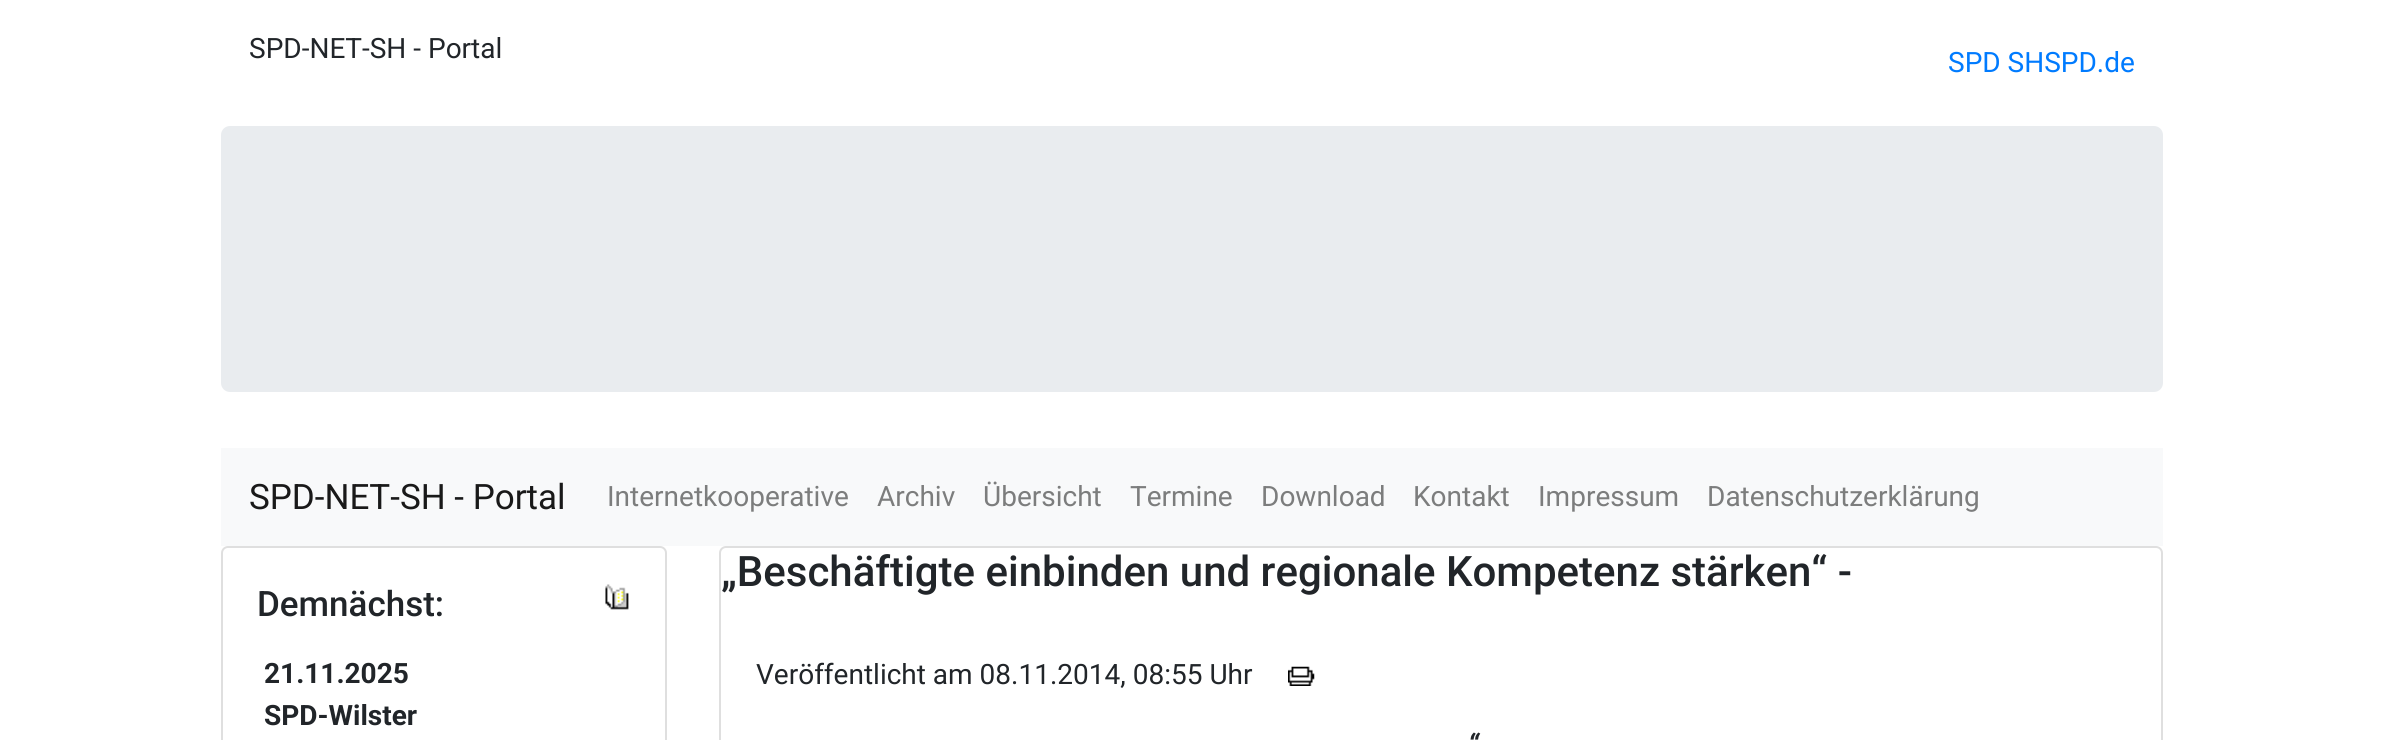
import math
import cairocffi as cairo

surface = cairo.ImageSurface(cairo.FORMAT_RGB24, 2382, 740)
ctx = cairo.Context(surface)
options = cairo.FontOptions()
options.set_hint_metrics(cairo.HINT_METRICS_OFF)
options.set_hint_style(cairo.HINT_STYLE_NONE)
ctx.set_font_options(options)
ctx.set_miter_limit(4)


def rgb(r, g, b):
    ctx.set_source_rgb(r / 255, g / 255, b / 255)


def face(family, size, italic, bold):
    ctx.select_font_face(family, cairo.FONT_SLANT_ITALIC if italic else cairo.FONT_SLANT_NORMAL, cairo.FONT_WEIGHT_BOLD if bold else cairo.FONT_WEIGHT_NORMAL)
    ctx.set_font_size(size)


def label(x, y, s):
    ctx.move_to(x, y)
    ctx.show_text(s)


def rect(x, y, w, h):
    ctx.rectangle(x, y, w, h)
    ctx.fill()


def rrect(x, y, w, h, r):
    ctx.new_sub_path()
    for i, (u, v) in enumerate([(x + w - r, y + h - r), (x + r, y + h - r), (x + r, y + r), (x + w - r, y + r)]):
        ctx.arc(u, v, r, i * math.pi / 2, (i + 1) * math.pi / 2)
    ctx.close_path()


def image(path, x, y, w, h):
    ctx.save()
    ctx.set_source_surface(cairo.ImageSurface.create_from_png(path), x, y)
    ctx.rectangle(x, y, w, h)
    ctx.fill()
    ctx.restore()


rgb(255, 255, 255)
ctx.paint()
face('Roboto', 28, 0, 0)
rgb(33, 37, 41)
label(249, 58, 'SPD-NET-SH - Portal')
rgb(0, 123, 255)
label(1948, 72, 'SPD SHSPD.de')
rgb(233, 236, 239)
rrect(221, 126, 1942, 266, 9)
ctx.fill()
rgb(248, 249, 250)
rect(221, 448, 1942, 98)
face('Roboto', 35, 0, 0)
rgb(25, 25, 25)
label(249, 509, 'SPD-NET-SH - Portal')
face('Roboto', 28, 0, 0)
rgb(124, 125, 125)
label(607, 506, 'Internetkooperative')
label(877, 506, 'Archiv')
label(983, 506, 'Übersicht')
label(1130, 506, 'Termine')
label(1261, 506, 'Download')
label(1413, 506, 'Kontakt')
label(1538, 506, 'Impressum')
label(1707, 506, 'Datenschutzerklärung')
rrect(222, 547, 444, 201, 6)
rgb(223, 223, 223)
ctx.stroke()
face('Roboto Medium', 35, 0, 0)
rgb(33, 37, 41)
label(257, 616, 'Demnächst:')
image('image0.png', 605, 584, 24, 26)
face('Roboto', 28, 0, 1)
label(264, 683, '21.11.2025')
label(264, 725, 'SPD-Wilster')
rrect(720, 547, 1442, 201, 6)
rgb(223, 223, 223)
ctx.stroke()
face('Roboto Medium', 42, 0, 0)
rgb(33, 37, 41)
label(721, 586, '„Beschäftigte einbinden und regionale Kompetenz stärken“ -')
face('Roboto', 28, 0, 0)
label(756, 684, 'Veröffentlicht am 08.11.2014, 08:55 Uhr')
image('image1.png', 1288, 666, 27, 20)
face('Roboto', 28, 1, 1)
label(1468, 754, '“')
surface.write_to_png('render.png')
